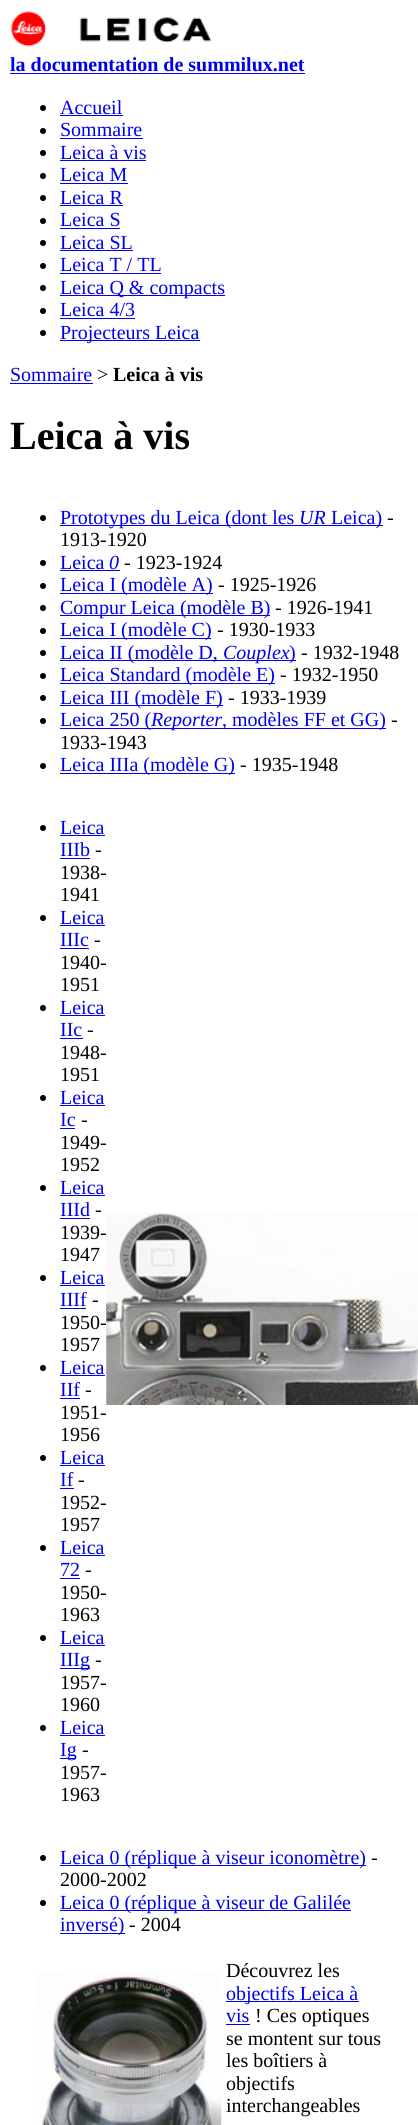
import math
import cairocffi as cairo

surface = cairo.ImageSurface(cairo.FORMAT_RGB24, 418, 2125)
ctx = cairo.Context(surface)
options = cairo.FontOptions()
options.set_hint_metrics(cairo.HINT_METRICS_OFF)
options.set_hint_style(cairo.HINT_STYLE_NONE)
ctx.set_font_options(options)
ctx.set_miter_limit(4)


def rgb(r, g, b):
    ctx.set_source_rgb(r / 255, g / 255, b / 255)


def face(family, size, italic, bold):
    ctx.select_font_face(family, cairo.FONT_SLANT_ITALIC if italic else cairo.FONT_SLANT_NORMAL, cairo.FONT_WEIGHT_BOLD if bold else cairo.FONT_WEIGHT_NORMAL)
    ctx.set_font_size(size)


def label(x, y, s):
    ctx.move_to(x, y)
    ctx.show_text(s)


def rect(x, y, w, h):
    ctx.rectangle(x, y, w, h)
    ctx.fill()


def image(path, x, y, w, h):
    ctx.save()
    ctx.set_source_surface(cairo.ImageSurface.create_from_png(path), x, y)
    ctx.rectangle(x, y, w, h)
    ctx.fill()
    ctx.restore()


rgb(255, 255, 255)
ctx.paint()
image('image0.png', 11, 11, 201, 36)
face('Liberation Serif', 20, 0, 1)
rgb(0, 0, 238)
label(10, 71, 'la documentation de summilux.net')
rect(10, 73, 295, 1)
rgb(0, 0, 0)
ctx.new_path()
ctx.arc(43, 108, 3, 0, 2 * math.pi)
ctx.fill()
face('Liberation Serif', 20, 0, 0)
rgb(0, 0, 238)
label(60, 114, 'Accueil')
rect(60, 115, 63, 1)
rgb(0, 0, 0)
ctx.new_path()
ctx.arc(43, 131, 3, 0, 2 * math.pi)
ctx.fill()
rgb(0, 0, 238)
label(60, 136, 'Sommaire')
rect(60, 138, 83, 1)
rgb(0, 0, 0)
ctx.new_path()
ctx.arc(43, 153, 3, 0, 2 * math.pi)
ctx.fill()
rgb(0, 0, 238)
label(60, 159, 'Leica à vis')
rect(60, 160, 86, 1)
rgb(0, 0, 0)
ctx.new_path()
ctx.arc(43, 176, 3, 0, 2 * math.pi)
ctx.fill()
rgb(0, 0, 238)
label(60, 181, 'Leica M')
rect(60, 183, 68, 1)
rgb(0, 0, 0)
ctx.new_path()
ctx.arc(43, 198, 3, 0, 2 * math.pi)
ctx.fill()
rgb(0, 0, 238)
label(60, 204, 'Leica R')
rect(60, 205, 63, 1)
rgb(0, 0, 0)
ctx.new_path()
ctx.arc(43, 221, 3, 0, 2 * math.pi)
ctx.fill()
rgb(0, 0, 238)
label(60, 226, 'Leica S')
rect(60, 228, 60, 1)
rgb(0, 0, 0)
ctx.new_path()
ctx.arc(43, 243, 3, 0, 2 * math.pi)
ctx.fill()
rgb(0, 0, 238)
label(60, 249, 'Leica SL')
rect(60, 250, 73, 1)
rgb(0, 0, 0)
ctx.new_path()
ctx.arc(43, 266, 3, 0, 2 * math.pi)
ctx.fill()
rgb(0, 0, 238)
label(60, 271, 'Leica T / TL')
rect(60, 273, 101, 1)
rgb(0, 0, 0)
ctx.new_path()
ctx.arc(43, 288, 3, 0, 2 * math.pi)
ctx.fill()
rgb(0, 0, 238)
rect(60, 295, 165, 1)
label(60, 294, 'Leica Q & compacts')
rgb(0, 0, 0)
ctx.new_path()
ctx.arc(43, 311, 3, 0, 2 * math.pi)
ctx.fill()
rgb(0, 0, 238)
label(60, 316, 'Leica 4/3')
rect(60, 318, 75, 1)
rgb(0, 0, 0)
ctx.new_path()
ctx.arc(43, 333, 3, 0, 2 * math.pi)
ctx.fill()
rgb(0, 0, 238)
rect(60, 340, 140, 1)
label(60, 339, 'Projecteurs Leica')
label(10, 381, 'Sommaire')
rect(10, 383, 83, 1)
rgb(0, 0, 0)
label(97, 381, '>')
face('Liberation Serif', 20, 0, 1)
label(113, 381, 'Leica à vis')
face('Liberation Serif', 40, 0, 1)
label(10, 449, 'Leica à vis')
ctx.new_path()
ctx.arc(43, 518, 3, 0, 2 * math.pi)
ctx.fill()
rgb(0, 0, 238)
rect(60, 525, 323, 1)
face('Liberation Serif', 20, 0, 0)
label(60, 524, 'Prototypes du Leica (dont les')
face('Liberation Serif', 20, 1, 0)
label(299, 524, 'UR')
face('Liberation Serif', 20, 0, 0)
label(331, 524, 'Leica)')
rgb(0, 0, 0)
label(387, 524, '-')
label(60, 546, '1913-1920')
ctx.new_path()
ctx.arc(43, 563, 3, 0, 2 * math.pi)
ctx.fill()
rgb(0, 0, 238)
label(60, 569, 'Leica')
rect(60, 570, 60, 1)
face('Liberation Serif', 20, 1, 0)
label(109, 569, '0')
face('Liberation Serif', 20, 0, 0)
rgb(0, 0, 0)
label(124, 569, '- 1923-1924')
ctx.new_path()
ctx.arc(43, 586, 3, 0, 2 * math.pi)
ctx.fill()
rgb(0, 0, 238)
rect(60, 593, 153, 1)
label(60, 591, 'Leica I (modèle A)')
rgb(0, 0, 0)
label(218, 591, '- 1925-1926')
ctx.new_path()
ctx.arc(43, 608, 3, 0, 2 * math.pi)
ctx.fill()
rgb(0, 0, 238)
rect(60, 615, 210, 1)
label(60, 614, 'Compur Leica (modèle B)')
rgb(0, 0, 0)
label(275, 614, '- 1926-1941')
ctx.new_path()
ctx.arc(43, 631, 3, 0, 2 * math.pi)
ctx.fill()
rgb(0, 0, 238)
rect(60, 638, 151, 1)
label(60, 636, 'Leica I (modèle C)')
rgb(0, 0, 0)
label(217, 636, '- 1930-1933')
ctx.new_path()
ctx.arc(43, 653, 3, 0, 2 * math.pi)
ctx.fill()
rgb(0, 0, 238)
rect(60, 660, 229, 1)
label(60, 659, 'Leica II (modèle D,')
face('Liberation Serif', 20, 1, 0)
label(223, 659, 'Couplex')
rect(289, 660, 7, 1)
face('Liberation Serif', 20, 0, 0)
label(289, 659, ')')
rgb(0, 0, 0)
label(301, 659, '- 1932-1948')
ctx.new_path()
ctx.arc(43, 676, 3, 0, 2 * math.pi)
ctx.fill()
rgb(0, 0, 238)
rect(60, 683, 215, 1)
label(60, 681, 'Leica Standard (modèle E)')
rgb(0, 0, 0)
label(280, 681, '- 1932-1950')
ctx.new_path()
ctx.arc(43, 698, 3, 0, 2 * math.pi)
ctx.fill()
rgb(0, 0, 238)
rect(60, 705, 163, 1)
label(60, 704, 'Leica III (modèle F)')
rgb(0, 0, 0)
label(228, 704, '- 1933-1939')
ctx.new_path()
ctx.arc(43, 721, 3, 0, 2 * math.pi)
ctx.fill()
rgb(0, 0, 238)
rect(60, 728, 326, 1)
label(60, 726, 'Leica 250 (')
face('Liberation Serif', 20, 1, 0)
label(151, 726, 'Reporter')
face('Liberation Serif', 20, 0, 0)
label(222, 726, ', modèles FF et GG)')
rgb(0, 0, 0)
label(391, 726, '-')
label(60, 749, '1933-1943')
ctx.new_path()
ctx.arc(43, 766, 3, 0, 2 * math.pi)
ctx.fill()
rgb(0, 0, 238)
rect(60, 773, 175, 1)
label(60, 771, 'Leica IIIa (modèle G)')
rgb(0, 0, 0)
label(240, 771, '- 1935-1948')
ctx.new_path()
ctx.arc(43, 828, 3, 0, 2 * math.pi)
ctx.fill()
rgb(0, 0, 238)
label(60, 834, 'Leica')
rect(60, 835, 45, 1)
label(60, 856, 'IIIb')
rect(60, 858, 30, 1)
rgb(0, 0, 0)
label(95, 856, '-')
label(60, 879, '1938-')
label(60, 901, '1941')
ctx.new_path()
ctx.arc(43, 918, 3, 0, 2 * math.pi)
ctx.fill()
rgb(0, 0, 238)
label(60, 924, 'Leica')
rect(60, 925, 45, 1)
label(60, 946, 'IIIc')
rect(60, 948, 29, 1)
rgb(0, 0, 0)
label(94, 946, '-')
label(60, 969, '1940-')
label(60, 991, '1951')
ctx.new_path()
ctx.arc(43, 1008, 3, 0, 2 * math.pi)
ctx.fill()
rgb(0, 0, 238)
label(60, 1014, 'Leica')
rect(60, 1015, 45, 1)
label(60, 1036, 'IIc')
rect(60, 1038, 23, 1)
rgb(0, 0, 0)
label(87, 1036, '-')
label(60, 1059, '1948-')
label(60, 1081, '1951')
ctx.new_path()
ctx.arc(43, 1098, 3, 0, 2 * math.pi)
ctx.fill()
rgb(0, 0, 238)
label(60, 1104, 'Leica')
rect(60, 1105, 45, 1)
label(60, 1126, 'Ic')
rect(60, 1128, 15, 1)
rgb(0, 0, 0)
label(81, 1126, '-')
label(60, 1149, '1949-')
label(60, 1171, '1952')
ctx.new_path()
ctx.arc(43, 1188, 3, 0, 2 * math.pi)
ctx.fill()
rgb(0, 0, 238)
label(60, 1194, 'Leica')
rect(60, 1195, 45, 1)
label(60, 1216, 'IIId')
rect(60, 1218, 30, 1)
rgb(0, 0, 0)
label(95, 1216, '-')
label(60, 1239, '1939-')
label(60, 1261, '1947')
ctx.new_path()
ctx.arc(43, 1278, 3, 0, 2 * math.pi)
ctx.fill()
rgb(0, 0, 238)
label(60, 1284, 'Leica')
rect(60, 1285, 45, 1)
label(60, 1306, 'IIIf')
rect(60, 1308, 26, 1)
rgb(0, 0, 0)
label(92, 1306, '-')
label(60, 1329, '1950-')
label(60, 1351, '1957')
ctx.new_path()
ctx.arc(43, 1368, 3, 0, 2 * math.pi)
ctx.fill()
rgb(0, 0, 238)
label(60, 1374, 'Leica')
rect(60, 1375, 45, 1)
label(60, 1396, 'IIf')
rect(60, 1398, 20, 1)
rgb(0, 0, 0)
label(85, 1396, '-')
label(60, 1419, '1951-')
label(60, 1441, '1956')
ctx.new_path()
ctx.arc(43, 1458, 3, 0, 2 * math.pi)
ctx.fill()
rgb(0, 0, 238)
label(60, 1464, 'Leica')
rect(60, 1465, 45, 1)
label(60, 1486, 'If')
rect(60, 1488, 14, 1)
rgb(0, 0, 0)
label(78, 1486, '-')
label(60, 1509, '1952-')
label(60, 1531, '1957')
ctx.new_path()
ctx.arc(43, 1548, 3, 0, 2 * math.pi)
ctx.fill()
rgb(0, 0, 238)
label(60, 1554, 'Leica')
rect(60, 1555, 45, 1)
label(60, 1576, '72')
rect(60, 1578, 20, 1)
rgb(0, 0, 0)
label(85, 1576, '-')
label(60, 1599, '1950-')
label(60, 1621, '1963')
ctx.new_path()
ctx.arc(43, 1638, 3, 0, 2 * math.pi)
ctx.fill()
rgb(0, 0, 238)
label(60, 1644, 'Leica')
rect(60, 1645, 45, 1)
rect(60, 1668, 30, 1)
label(60, 1666, 'IIIg')
rgb(0, 0, 0)
label(95, 1666, '-')
label(60, 1689, '1957-')
label(60, 1711, '1960')
ctx.new_path()
ctx.arc(43, 1728, 3, 0, 2 * math.pi)
ctx.fill()
rgb(0, 0, 238)
label(60, 1734, 'Leica')
rect(60, 1735, 45, 1)
rect(60, 1758, 16, 1)
label(60, 1756, 'Ig')
rgb(0, 0, 0)
label(82, 1756, '-')
label(60, 1779, '1957-')
label(60, 1801, '1963')
image('image1.png', 106, 1212, 312, 193)
ctx.arc(43, 1858, 3, 0, 2 * math.pi)
ctx.fill()
rgb(0, 0, 238)
rect(60, 1865, 306, 1)
label(60, 1864, 'Leica 0 (réplique à viseur iconomètre)')
rgb(0, 0, 0)
label(371, 1864, '-')
label(60, 1886, '2000-2002')
ctx.new_path()
ctx.arc(43, 1903, 3, 0, 2 * math.pi)
ctx.fill()
rgb(0, 0, 238)
rect(60, 1910, 291, 1)
label(60, 1909, 'Leica 0 (réplique à viseur de Galilée')
rect(60, 1933, 65, 1)
label(60, 1931, 'inversé)')
rgb(0, 0, 0)
label(129, 1931, '- 2004')
image('image2.png', 35, 1972, 187, 153)
label(226, 1977, 'Découvrez les')
rgb(0, 0, 238)
rect(226, 2001, 133, 1)
label(226, 2000, 'objectifs Leica à')
label(226, 2022, 'vis')
rect(226, 2024, 24, 1)
rgb(0, 0, 0)
label(255, 2022, '! Ces optiques')
label(226, 2045, 'se montent sur tous')
label(226, 2067, 'les boîtiers à')
label(226, 2090, 'objectifs')
label(226, 2112, 'interchangeables')
surface.write_to_png('render.png')
